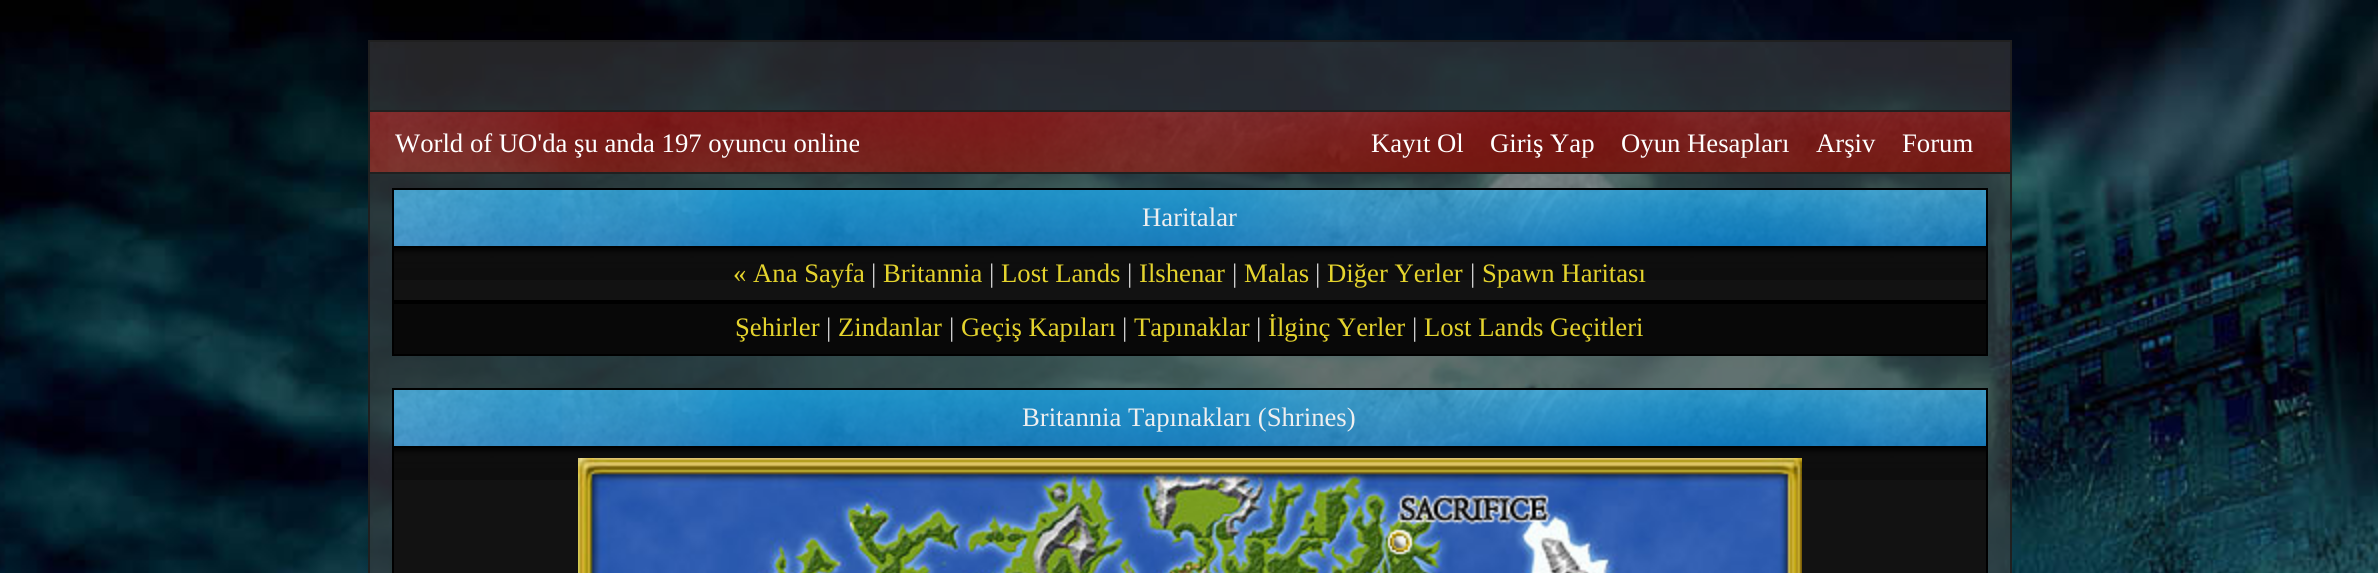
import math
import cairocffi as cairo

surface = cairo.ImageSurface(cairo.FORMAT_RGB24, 2378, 573)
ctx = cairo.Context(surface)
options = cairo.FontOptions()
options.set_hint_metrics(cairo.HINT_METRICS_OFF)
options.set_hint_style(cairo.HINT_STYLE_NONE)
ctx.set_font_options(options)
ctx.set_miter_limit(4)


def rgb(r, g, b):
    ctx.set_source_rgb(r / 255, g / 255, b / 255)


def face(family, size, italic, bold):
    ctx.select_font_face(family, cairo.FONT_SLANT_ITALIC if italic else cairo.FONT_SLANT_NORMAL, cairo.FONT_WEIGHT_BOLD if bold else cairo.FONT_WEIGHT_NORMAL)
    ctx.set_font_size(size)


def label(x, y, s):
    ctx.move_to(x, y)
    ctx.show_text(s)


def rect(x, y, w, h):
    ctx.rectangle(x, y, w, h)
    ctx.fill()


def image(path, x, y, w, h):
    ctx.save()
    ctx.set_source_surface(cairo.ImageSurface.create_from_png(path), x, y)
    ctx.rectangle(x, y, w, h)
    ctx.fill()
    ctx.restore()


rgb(255, 255, 255)
ctx.paint()
image('image0.png', 0, 0, 2378, 573)
ctx.set_source_rgba(0.247, 0.247, 0.247, 0.6)
ctx.rectangle(369, 41, 1642, 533)
ctx.fill_preserve()
rgb(32, 32, 32)
ctx.stroke()
image('image1.png', 370, 112, 1640, 60)
rect(370, 110, 1640, 2)
rect(370, 172, 1640, 2)
face('Liberation Serif', 26.7, 0, 0)
rgb(255, 255, 255)
label(395, 152, 'World of UO\'da şu anda 197 oyuncu online')
label(1371, 152, 'Kayıt Ol')
label(1490, 152, 'Giriş Yap')
label(1621, 152, 'Oyun Hesapları')
label(1816, 152, 'Arşiv')
label(1902, 152, 'Forum')
rgb(0, 0, 0)
rect(392, 188, 1596, 168)
image('image2.png', 394, 190, 1592, 56)
rgb(239, 239, 239)
label(1142, 226, 'Haritalar')
rgb(18, 18, 18)
rect(394, 280, 1592, 20)
image('image3.png', 394, 248, 1592, 32)
rgb(228, 211, 45)
label(733, 282, '« Ana Sayfa')
rgb(208, 208, 208)
label(871, 282, '|')
rgb(228, 211, 45)
label(883, 282, 'Britannia')
rgb(208, 208, 208)
label(989, 282, '|')
rgb(228, 211, 45)
label(1001, 282, 'Lost Lands')
rgb(208, 208, 208)
label(1127, 282, '|')
rgb(228, 211, 45)
label(1139, 282, 'Ilshenar')
rgb(208, 208, 208)
label(1232, 282, '|')
rgb(228, 211, 45)
label(1244, 282, 'Malas')
rgb(208, 208, 208)
label(1315, 282, '|')
rgb(228, 211, 45)
label(1327, 282, 'Diğer Yerler')
rgb(208, 208, 208)
label(1470, 282, '|')
rgb(228, 211, 45)
label(1482, 282, 'Spawn Haritası')
rgb(8, 8, 8)
rect(394, 304, 1592, 50)
rgb(228, 211, 45)
label(735, 336, 'Şehirler')
rgb(208, 208, 208)
label(826, 336, '|')
rgb(228, 211, 45)
label(838, 336, 'Zindanlar')
rgb(208, 208, 208)
label(949, 336, '|')
rgb(228, 211, 45)
label(961, 336, 'Geçiş Kapıları')
rgb(208, 208, 208)
label(1122, 336, '|')
rgb(228, 211, 45)
label(1134, 336, 'Tapınaklar')
rgb(208, 208, 208)
label(1256, 336, '|')
rgb(228, 211, 45)
label(1268, 336, 'İlginç Yerler')
rgb(208, 208, 208)
label(1412, 336, '|')
rgb(228, 211, 45)
label(1424, 336, 'Lost Lands Geçitleri')
rgb(0, 0, 0)
rect(392, 388, 1596, 185)
image('image2.png', 394, 390, 1592, 56)
rgb(239, 239, 239)
label(1022, 426, 'Britannia Tapınakları (Shrines)')
rgb(18, 18, 18)
rect(394, 480, 1592, 93)
image('image3.png', 394, 448, 1592, 32)
image('image4.png', 578, 458, 1224, 115)
image('image5.png', 1387, 493, 164, 62)
surface.write_to_png('render.png')
